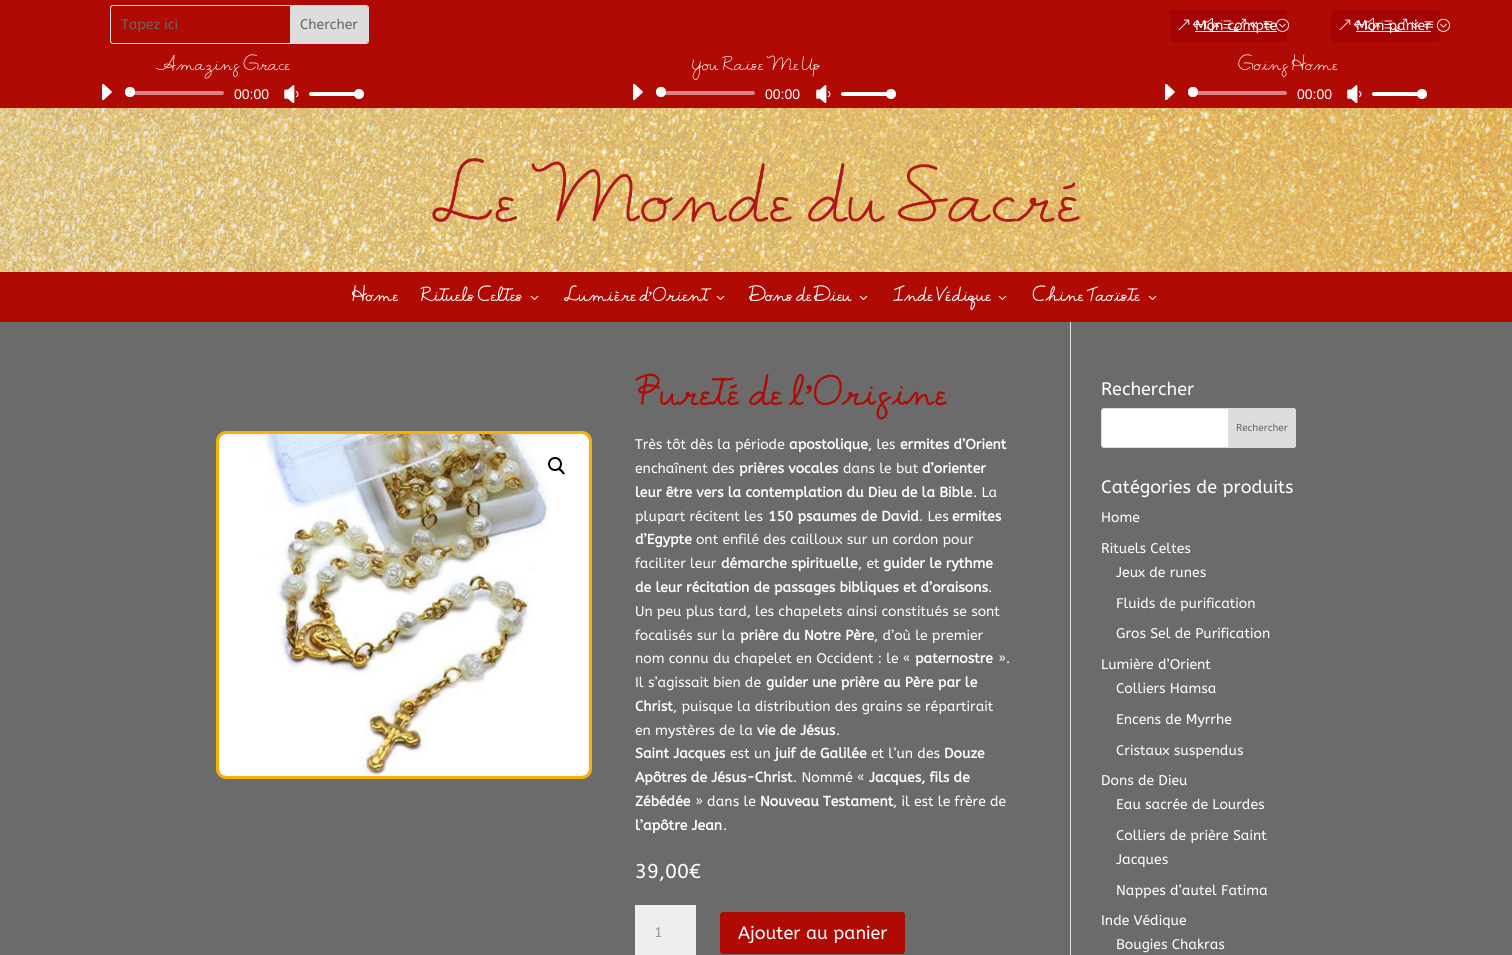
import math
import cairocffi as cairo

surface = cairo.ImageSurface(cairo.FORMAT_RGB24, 1512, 955)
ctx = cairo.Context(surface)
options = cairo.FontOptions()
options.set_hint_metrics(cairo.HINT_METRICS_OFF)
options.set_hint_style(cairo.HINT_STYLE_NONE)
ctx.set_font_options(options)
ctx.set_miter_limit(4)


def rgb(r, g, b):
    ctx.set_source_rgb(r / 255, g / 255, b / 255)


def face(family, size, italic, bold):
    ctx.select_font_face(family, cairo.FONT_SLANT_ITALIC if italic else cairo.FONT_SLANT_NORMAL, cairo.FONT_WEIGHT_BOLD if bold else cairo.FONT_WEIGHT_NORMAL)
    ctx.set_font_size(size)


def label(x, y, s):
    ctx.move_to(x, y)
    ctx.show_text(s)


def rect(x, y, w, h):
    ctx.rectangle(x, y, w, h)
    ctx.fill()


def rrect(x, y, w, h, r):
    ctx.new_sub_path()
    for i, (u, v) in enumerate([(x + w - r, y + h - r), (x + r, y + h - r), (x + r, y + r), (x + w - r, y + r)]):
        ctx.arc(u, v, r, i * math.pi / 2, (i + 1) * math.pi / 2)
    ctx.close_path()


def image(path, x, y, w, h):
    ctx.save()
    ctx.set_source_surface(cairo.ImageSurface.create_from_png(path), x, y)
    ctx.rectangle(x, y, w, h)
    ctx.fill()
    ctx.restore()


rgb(107, 107, 107)
ctx.paint()
rgb(175, 11, 4)
rect(0, 0, 1512, 108)
rrect(110.5, 5.5, 258, 38, 2.5)
rgb(221, 221, 221)
ctx.set_line_width(1)
ctx.stroke()
face('ABeeZee', 14, 0, 0)
rgb(102, 102, 102)
label(121, 29, 'Tapez ici')
rgb(221, 221, 221)
ctx.new_path()
ctx.move_to(290, 6)
ctx.line_to(366, 6)
ctx.curve_to(367, 6, 368, 7, 368, 8)
ctx.line_to(368, 41)
ctx.curve_to(368, 42, 367, 43, 366, 43)
ctx.line_to(290, 43)
ctx.close_path()
ctx.fill()
rgb(102, 102, 102)
label(300, 29, 'Chercher')
rgb(163, 3, 3)
rrect(1170, 10, 117, 32, 3)
ctx.fill()
rgb(255, 255, 255)
rect(1195, 31, 82, 1)
label(1195, 30, 'Mon compte')
image('image0.png', 1178, 17, 111, 15)
rgb(163, 3, 3)
rrect(1331, 10, 109, 32, 3)
ctx.fill()
rgb(255, 255, 255)
rect(1356, 31, 75, 1)
label(1356, 30, 'Mon panier')
image('image1.png', 1339, 17, 111, 15)
face('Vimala', 14, 0, 0)
label(159, 70, 'Amazing Grace')
image('image2.png', 102, 84, 10, 16)
rgb(215, 133, 130)
rrect(132, 91, 92, 4, 2)
ctx.fill()
ctx.set_source_rgba(1, 1, 1, 0.9)
ctx.arc(130, 92, 5, 0, 2 * math.pi)
ctx.fill()
ctx.arc(130, 92, 3, 0, 2 * math.pi)
ctx.set_line_width(4)
ctx.stroke()
face('Liberation Sans', 14, 0, 0)
rgb(255, 255, 255)
label(234, 99, '00:00')
image('image3.png', 284, 85, 15, 18)
rrect(309, 92, 50, 4, 2)
ctx.fill()
ctx.arc(359, 94, 5, 0, 2 * math.pi)
ctx.fill()
face('Vimala', 14, 0, 0)
label(692, 70, 'You Raise Me Up')
image('image2.png', 633, 84, 10, 16)
rgb(215, 133, 130)
rrect(663, 91, 92, 4, 2)
ctx.fill()
ctx.set_source_rgba(1, 1, 1, 0.9)
ctx.arc(661, 92, 5, 0, 2 * math.pi)
ctx.fill()
ctx.arc(661, 92, 3, 0, 2 * math.pi)
ctx.stroke()
face('Liberation Sans', 14, 0, 0)
rgb(255, 255, 255)
label(765, 99, '00:00')
image('image3.png', 816, 85, 15, 18)
rrect(841, 92, 50, 4, 2)
ctx.fill()
ctx.arc(891, 94, 5, 0, 2 * math.pi)
ctx.fill()
face('Vimala', 14, 0, 0)
label(1238, 70, 'Going Home')
image('image2.png', 1165, 84, 10, 16)
rgb(215, 133, 130)
rrect(1195, 91, 92, 4, 2)
ctx.fill()
ctx.set_source_rgba(1, 1, 1, 0.9)
ctx.arc(1193, 92, 5, 0, 2 * math.pi)
ctx.fill()
ctx.arc(1193, 92, 3, 0, 2 * math.pi)
ctx.stroke()
face('Liberation Sans', 14, 0, 0)
rgb(255, 255, 255)
label(1297, 99, '00:00')
image('image3.png', 1347, 85, 15, 18)
rrect(1372, 92, 50, 4, 2)
ctx.fill()
ctx.arc(1422, 94, 5, 0, 2 * math.pi)
ctx.fill()
image('image4.png', 0, 108, 1512, 164)
image('image5.png', 432, 158, 648, 64)
rgb(175, 11, 4)
rect(0, 272, 1512, 50)
face('Vimala', 14, 0, 1)
rgb(255, 255, 255)
label(352, 301, 'Home')
label(420, 301, 'Rituels Celtes')
image('image6.png', 530, 295, 9, 5)
label(564, 301, 'Lumière d')
face('Liberation Serif', 14, 0, 1)
label(648, 301, '’')
face('Vimala', 14, 0, 1)
label(653, 301, 'Orient')
image('image6.png', 716, 295, 9, 5)
label(750, 301, 'Dons de Dieu')
image('image6.png', 859, 295, 9, 5)
label(893, 301, 'Inde Védique')
image('image6.png', 998, 295, 9, 5)
label(1032, 301, 'Chine Taoïste')
image('image6.png', 1148, 295, 9, 5)
rgb(226, 226, 226)
rect(1070, 322, 1, 633)
rrect(217.5, 432.5, 373, 345, 8.5)
rgb(249, 176, 0)
ctx.set_line_width(3)
ctx.stroke()
image('image7.png', 219, 434, 370, 342)
rgb(255, 255, 255)
ctx.arc(557, 466, 18, 0, 2 * math.pi)
ctx.fill()
ctx.arc(555, 464, 6, 0, 2 * math.pi)
rgb(0, 0, 0)
ctx.set_line_width(2)
ctx.stroke()
ctx.new_path()
ctx.move_to(559, 468.5)
ctx.curve_to(560, 467, 562, 470, 562.5, 470.5)
ctx.curve_to(563, 471, 565.5, 473, 564.5, 474)
ctx.curve_to(563.5, 475.5, 561.5, 472.5, 561, 472)
ctx.curve_to(560.5, 471.5, 557.5, 469.5, 559, 468.5)
ctx.close_path()
ctx.fill()
face('Vimala', 30, 0, 1)
rgb(175, 11, 4)
label(635, 405, 'Pureté de l')
face('Liberation Serif', 30, 0, 1)
label(804, 405, '’')
face('Vimala', 30, 0, 1)
label(814, 405, 'Origine')
face('ABeeZee', 14, 0, 0)
rgb(255, 255, 255)
label(635, 449, 'Très tôt dès la période')
face('ABeeZee', 14, 0, 1)
label(789, 449, 'apostolique')
face('ABeeZee', 14, 0, 0)
label(868, 449, ', les')
face('ABeeZee', 14, 0, 1)
label(900, 449, 'ermites d’Orient')
face('ABeeZee', 14, 0, 0)
label(635, 473, 'enchaînent des')
face('ABeeZee', 14, 0, 1)
label(739, 473, 'prières vocales')
face('ABeeZee', 14, 0, 0)
label(843, 473, 'dans le but')
face('ABeeZee', 14, 0, 1)
label(922, 473, 'd’orienter')
label(635, 497, 'leur être vers la contemplation du Dieu de la Bible')
face('ABeeZee', 14, 0, 0)
label(973, 497, '. La')
label(635, 521, 'plupart récitent les')
face('ABeeZee', 14, 0, 1)
label(768, 521, '150 psaumes de David')
face('ABeeZee', 14, 0, 0)
label(919, 521, '. Les')
face('ABeeZee', 14, 0, 1)
label(952, 521, 'ermites')
label(635, 544, 'd’Egypte')
face('ABeeZee', 14, 0, 0)
label(696, 544, 'ont enfilé des cailloux sur un cordon pour')
label(635, 568, 'faciliter leur')
face('ABeeZee', 14, 0, 1)
label(721, 568, 'démarche spirituelle')
face('ABeeZee', 14, 0, 0)
label(858, 568, ', et')
face('ABeeZee', 14, 0, 1)
label(883, 568, 'guider le rythme')
label(635, 592, 'de leur récitation de passages bibliques et d’oraisons')
face('ABeeZee', 14, 0, 0)
label(988, 592, '.')
label(635, 616, 'Un peu plus tard, les chapelets ainsi constitués se sont')
label(635, 640, 'focalisés sur la')
face('ABeeZee', 14, 0, 1)
label(740, 640, 'prière du Notre Père')
face('ABeeZee', 14, 0, 0)
label(874, 640, ', d’où le premier')
label(635, 663, 'nom connu du chapelet en Occident : le «')
face('ABeeZee', 14, 0, 1)
label(915, 663, 'paternostre')
face('ABeeZee', 14, 0, 0)
label(998, 663, '».')
label(635, 687, 'Il s’agissait bien de')
face('ABeeZee', 14, 0, 1)
label(766, 687, 'guider une prière au Père par le')
label(635, 711, 'Christ')
face('ABeeZee', 14, 0, 0)
label(673, 711, ', puisque la distribution des grains se répartirait')
label(635, 735, 'en mystères de la')
face('ABeeZee', 14, 0, 1)
label(757, 735, 'vie de Jésus')
face('ABeeZee', 14, 0, 0)
label(836, 735, '.')
face('ABeeZee', 14, 0, 1)
label(635, 758, 'Saint Jacques')
face('ABeeZee', 14, 0, 0)
label(730, 758, 'est un')
face('ABeeZee', 14, 0, 1)
label(775, 758, 'juif de Galilée')
face('ABeeZee', 14, 0, 0)
label(871, 758, 'et l’un des')
face('ABeeZee', 14, 0, 1)
label(944, 758, 'Douze')
label(635, 782, 'Apôtres de Jésus-Christ')
face('ABeeZee', 14, 0, 0)
label(793, 782, '. Nommé «')
face('ABeeZee', 14, 0, 1)
label(869, 782, 'Jacques, fils de')
label(635, 806, 'Zébédée')
face('ABeeZee', 14, 0, 0)
label(695, 806, '» dans le')
face('ABeeZee', 14, 0, 1)
label(760, 806, 'Nouveau Testament')
face('ABeeZee', 14, 0, 0)
label(893, 806, ', il est le frère de')
face('ABeeZee', 14, 0, 1)
label(635, 830, 'l’apôtre Jean')
face('ABeeZee', 14, 0, 0)
label(723, 830, '.')
face('ABeeZee', 20, 0, 0)
label(635, 878, '39,00€')
rgb(238, 238, 238)
rect(635, 905, 61, 50)
face('ABeeZee', 14, 0, 0)
rgb(153, 153, 153)
label(654, 937, '1')
rgb(175, 11, 4)
rrect(720, 912, 185, 42, 3)
ctx.fill()
face('ABeeZee', 18, 0, 0)
rgb(255, 255, 255)
label(738, 939, 'Ajouter au panier')
label(1101, 395, 'Rechercher')
rrect(1101.5, 408.5, 194, 39, 2.5)
ctx.fill_preserve()
rgb(221, 221, 221)
ctx.set_line_width(1)
ctx.stroke()
ctx.new_path()
ctx.move_to(1228.5, 408.5)
ctx.line_to(1293, 408.5)
ctx.curve_to(1294.5, 408.5, 1295.5, 409.5, 1295.5, 411)
ctx.line_to(1295.5, 445)
ctx.curve_to(1295.5, 446.5, 1294.5, 447.5, 1293, 447.5)
ctx.line_to(1228.5, 447.5)
ctx.close_path()
ctx.fill_preserve()
ctx.stroke()
face('ABeeZee', 10, 0, 0)
rgb(102, 102, 102)
label(1236, 431, 'Rechercher')
face('ABeeZee', 18, 0, 0)
rgb(255, 255, 255)
label(1101, 493, 'Catégories de produits')
face('ABeeZee', 14, 0, 0)
label(1101, 522, 'Home')
label(1101, 553, 'Rituels Celtes')
label(1116, 577, 'Jeux de runes')
label(1116, 608, 'Fluids de purification')
label(1116, 638, 'Gros Sel de Purification')
label(1101, 669, 'Lumière d’Orient')
label(1116, 693, 'Colliers Hamsa')
label(1116, 724, 'Encens de Myrrhe')
label(1116, 755, 'Cristaux suspendus')
label(1101, 785, 'Dons de Dieu')
label(1116, 809, 'Eau sacrée de Lourdes')
label(1116, 840, 'Colliers de prière Saint')
label(1116, 864, 'Jacques')
label(1116, 895, 'Nappes d’autel Fatima')
label(1101, 925, 'Inde Védique')
label(1116, 949, 'Bougies Chakras')
surface.write_to_png('render.png')
